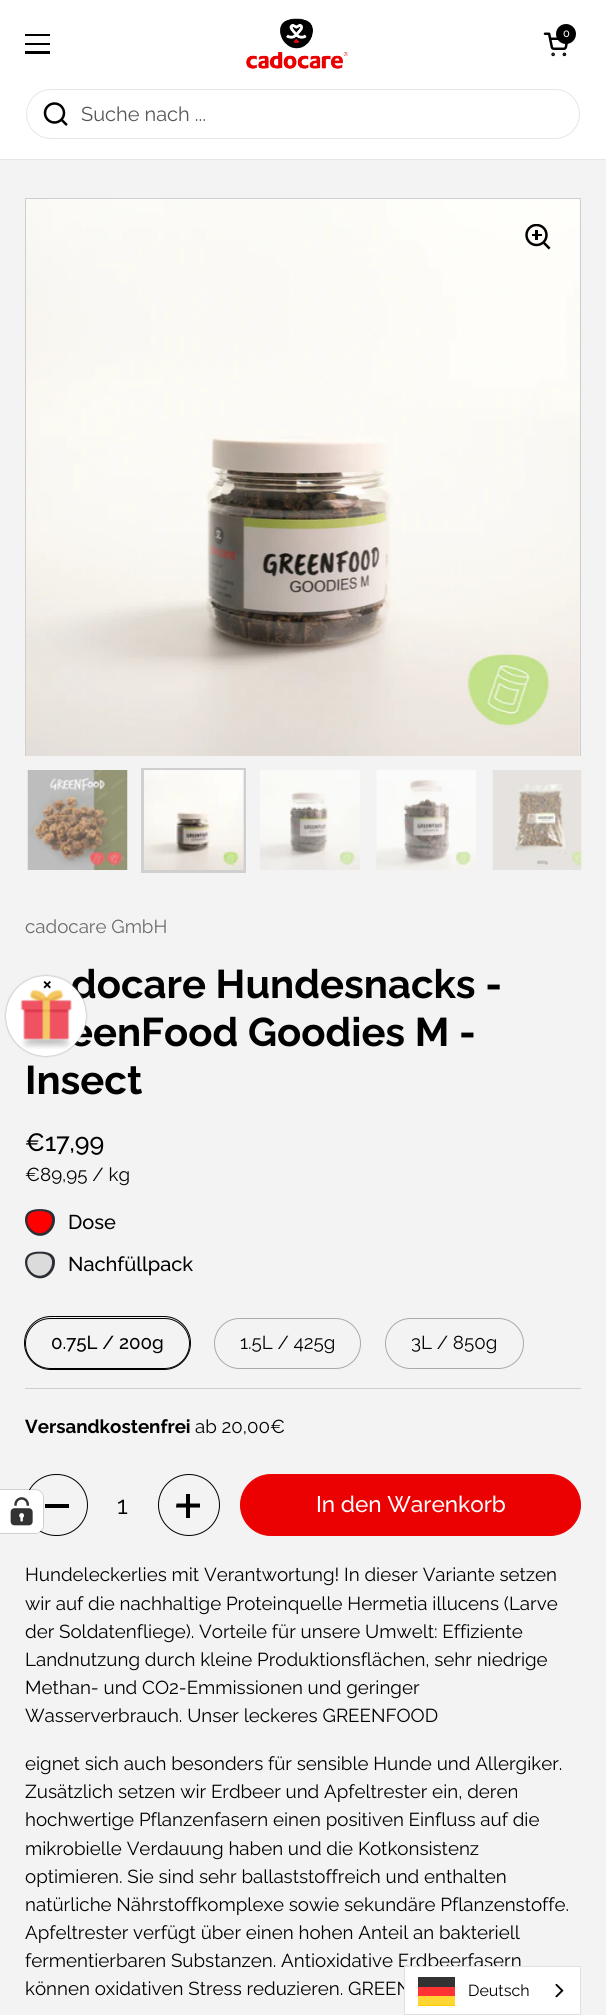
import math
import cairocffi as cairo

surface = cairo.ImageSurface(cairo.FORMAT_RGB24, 606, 2015)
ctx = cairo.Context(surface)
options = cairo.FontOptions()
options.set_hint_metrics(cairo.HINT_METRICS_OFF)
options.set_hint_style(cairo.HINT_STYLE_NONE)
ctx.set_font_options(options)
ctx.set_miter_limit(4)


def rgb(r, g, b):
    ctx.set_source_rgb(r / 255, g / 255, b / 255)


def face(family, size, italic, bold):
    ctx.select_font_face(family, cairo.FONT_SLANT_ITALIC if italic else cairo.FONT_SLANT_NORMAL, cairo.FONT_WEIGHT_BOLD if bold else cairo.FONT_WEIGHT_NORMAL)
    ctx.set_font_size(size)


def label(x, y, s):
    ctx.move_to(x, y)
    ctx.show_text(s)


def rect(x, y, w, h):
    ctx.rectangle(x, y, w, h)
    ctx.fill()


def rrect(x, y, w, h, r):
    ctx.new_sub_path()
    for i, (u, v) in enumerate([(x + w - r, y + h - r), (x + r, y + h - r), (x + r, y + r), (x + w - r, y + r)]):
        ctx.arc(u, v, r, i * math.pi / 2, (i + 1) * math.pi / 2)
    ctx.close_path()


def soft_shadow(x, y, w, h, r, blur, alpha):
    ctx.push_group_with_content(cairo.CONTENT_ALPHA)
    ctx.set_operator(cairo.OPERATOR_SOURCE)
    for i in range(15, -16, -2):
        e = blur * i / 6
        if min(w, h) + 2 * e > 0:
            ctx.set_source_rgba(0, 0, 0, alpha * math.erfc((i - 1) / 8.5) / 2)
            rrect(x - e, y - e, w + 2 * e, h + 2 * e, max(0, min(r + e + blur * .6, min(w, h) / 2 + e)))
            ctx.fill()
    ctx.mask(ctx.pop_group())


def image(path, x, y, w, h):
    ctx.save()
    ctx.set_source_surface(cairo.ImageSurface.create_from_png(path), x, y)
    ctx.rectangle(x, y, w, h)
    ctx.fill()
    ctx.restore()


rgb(243, 243, 243)
ctx.paint()
rgb(255, 255, 255)
rect(0, 0, 606, 159)
rgb(0, 0, 0)
rect(25, 34, 25, 2)
rect(25, 43, 25, 2)
rect(25, 51, 25, 3)
image('image0.png', 246, 18, 102, 51)
image('image1.png', 543, 32, 25, 25)
ctx.arc(566, 34, 10, 0, 2 * math.pi)
ctx.fill()
face('Raleway Medium', 11, 0, 0)
rgb(255, 255, 255)
label(563, 37, '0')
rgb(230, 230, 230)
rect(0, 159, 606, 1)
rrect(26.5, 89.5, 553, 49, 24.5)
ctx.set_line_width(1)
ctx.stroke()
image('image2.png', 43, 102, 25, 24)
face('Raleway', 20, 0, 0)
rgb(87, 87, 87)
label(81, 121, 'Suche nach ...')
ctx.rectangle(25.5, 198.5, 555, 557)
rgb(207, 207, 207)
ctx.stroke()
image('image3.png', 26, 199, 554, 557)
image('image4.png', 525, 224, 26, 26)
image('image5.png', 27, 770, 101, 100)
ctx.rectangle(142.5, 769.5, 102, 102)
ctx.set_line_width(3)
ctx.stroke()
image('image6.png', 144, 770, 100, 100)
image('image7.png', 260, 770, 100, 100)
image('image8.png', 376, 770, 100, 100)
image('image9.png', 492, 770, 90, 100)
face('Raleway', 18.75, 0, 0)
rgb(106, 106, 106)
label(25, 933, 'cadocare GmbH')
face('Raleway', 40, 0, 1)
rgb(0, 0, 0)
label(71, 998, 'docare Hundesnacks -')
label(69, 1046, 'eenFood Goodies M -')
label(25, 1094, 'Insect')
face('Raleway Medium', 25, 0, 0)
label(25, 1151, '€17,99')
face('Raleway', 18.75, 0, 0)
label(25, 1181, '€89,95 / kg')
image('image10.png', 25, 1209, 30, 27)
face('Raleway Medium', 20, 0, 0)
label(68, 1229, 'Dose')
image('image11.png', 25, 1251, 30, 28)
label(68, 1271, 'Nachfüllpack')
rrect(24.5, 1316.5, 166, 53, 26.5)
ctx.set_line_width(1)
ctx.stroke()
rrect(25.5, 1318.5, 164, 50, 25)
ctx.stroke()
face('Raleway Medium', 18.75, 0, 0)
label(51, 1349, '0.75L / 200g')
rrect(214.5, 1318.5, 146, 50, 25)
rgb(170, 170, 170)
ctx.stroke()
face('Raleway', 18.75, 0, 0)
rgb(0, 0, 0)
label(240, 1349, '1.5L / 425g')
rrect(385.5, 1318.5, 138, 50, 25)
rgb(170, 170, 170)
ctx.stroke()
rgb(0, 0, 0)
label(411, 1349, '3L / 850g')
rgb(207, 207, 207)
rect(25, 1388, 556, 1)
face('Raleway', 18.75, 0, 1)
rgb(0, 0, 0)
label(25, 1433, 'Versandkostenfrei')
face('Raleway', 18.75, 0, 0)
label(195, 1433, 'ab 20,00€')
rrect(25.5, 1474.5, 62, 61, 30.5)
ctx.stroke()
rect(45, 1504, 24, 4)
face('Raleway', 25, 0, 0)
label(117, 1514, '1')
ctx.new_path()
ctx.arc(189, 1505, 30.5, 0, 2 * math.pi)
ctx.stroke()
rect(186, 1494, 4, 24)
ctx.new_path()
ctx.move_to(200, 1503.5)
ctx.line_to(200, 1507.5)
ctx.line_to(176, 1507.5)
ctx.line_to(176.5, 1503.5)
ctx.close_path()
ctx.fill()
rgb(235, 1, 2)
rrect(240.5, 1474.5, 340, 61, 30.5)
ctx.fill_preserve()
ctx.stroke()
face('Raleway Medium', 22.5, 0, 0)
rgb(255, 255, 255)
label(316, 1512, 'In den Warenkorb')
face('Raleway', 18.75, 0, 0)
rgb(0, 0, 0)
label(25, 1581, 'Hundeleckerlies mit Verantwortung! In dieser Variante setzen')
label(25, 1610, 'wir auf die nachhaltige Proteinquelle Hermetia illucens (Larve')
label(25, 1638, 'der Soldatenfliege). Vorteile für unsere Umwelt: Effiziente')
label(25, 1666, 'Landnutzung durch kleine Produktionsflächen, sehr niedrige')
label(25, 1694, 'Methan- und CO2-Emmissionen und geringer')
label(25, 1722, 'Wasserverbrauch. Unser leckeres GREENFOOD')
label(25, 1770, 'eignet sich auch besonders für sensible Hunde und Allergiker.')
label(25, 1798, 'Zusätzlich setzen wir Erdbeer und Apfeltrester ein, deren')
label(25, 1826, 'hochwertige Pflanzenfasern einen positiven Einfluss auf die')
label(25, 1855, 'mikrobielle Verdauung haben und die Kotkonsistenz')
label(25, 1883, 'optimieren. Sie sind sehr ballaststoffreich und enthalten')
label(25, 1911, 'natürliche Nährstoffkomplexe sowie sekundäre Pflanzenstoffe.')
label(25, 1939, 'Apfeltrester verfügt über einen hohen Anteil an bakteriell')
label(25, 1967, 'fermentierbaren Substanzen. Antioxidative Erdbeerfasern')
label(25, 1995, 'können oxidativen Stress reduzieren. GREEN')
rgb(157, 157, 157)
soft_shadow(6, 976, 80, 80, 40, 1, 1)
rgb(255, 255, 255)
ctx.arc(46, 1016, 40, 0, 2 * math.pi)
ctx.fill()
image('image12.png', 20, 989, 52, 60)
face('Roboto', 16, 0, 1)
rgb(0, 0, 0)
label(43, 990, '×')
ctx.new_path()
ctx.move_to(-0.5, 1489.5)
ctx.line_to(35, 1489.5)
ctx.curve_to(39.5, 1489.5, 43.5, 1493.5, 43.5, 1498)
ctx.line_to(43.5, 1525)
ctx.curve_to(43.5, 1529.5, 39.5, 1533.5, 35, 1533.5)
ctx.line_to(-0.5, 1533.5)
ctx.close_path()
ctx.set_source_rgba(0, 0, 0, 0.15)
ctx.stroke()
rgb(255, 255, 255)
ctx.new_path()
ctx.move_to(0, 1490)
ctx.line_to(35, 1490)
ctx.curve_to(39.5, 1490, 43, 1493.5, 43, 1498)
ctx.line_to(43, 1525)
ctx.curve_to(43, 1529.5, 39.5, 1533, 35, 1533)
ctx.line_to(0, 1533)
ctx.close_path()
ctx.fill()
image('image13.png', 10, 1497, 23, 29)
ctx.rectangle(404.5, 1966.5, 176, 48)
ctx.fill_preserve()
rgb(224, 224, 224)
ctx.stroke()
rgb(255, 204, 0)
rect(418, 1996, 37, 10)
rgb(0, 0, 1)
rect(418, 1977, 37, 10)
rgb(255, 0, 0)
rect(418, 1987, 37, 9)
ctx.set_source_rgba(1, 1, 1, 0.2)
rect(418, 1977, 37, 28)
face('Raleway', 16, 0, 0)
rgb(0, 0, 0)
label(468, 1996, 'Deutsch')
image('image14.png', 555, 1983, 9, 15)
surface.write_to_png('render.png')
